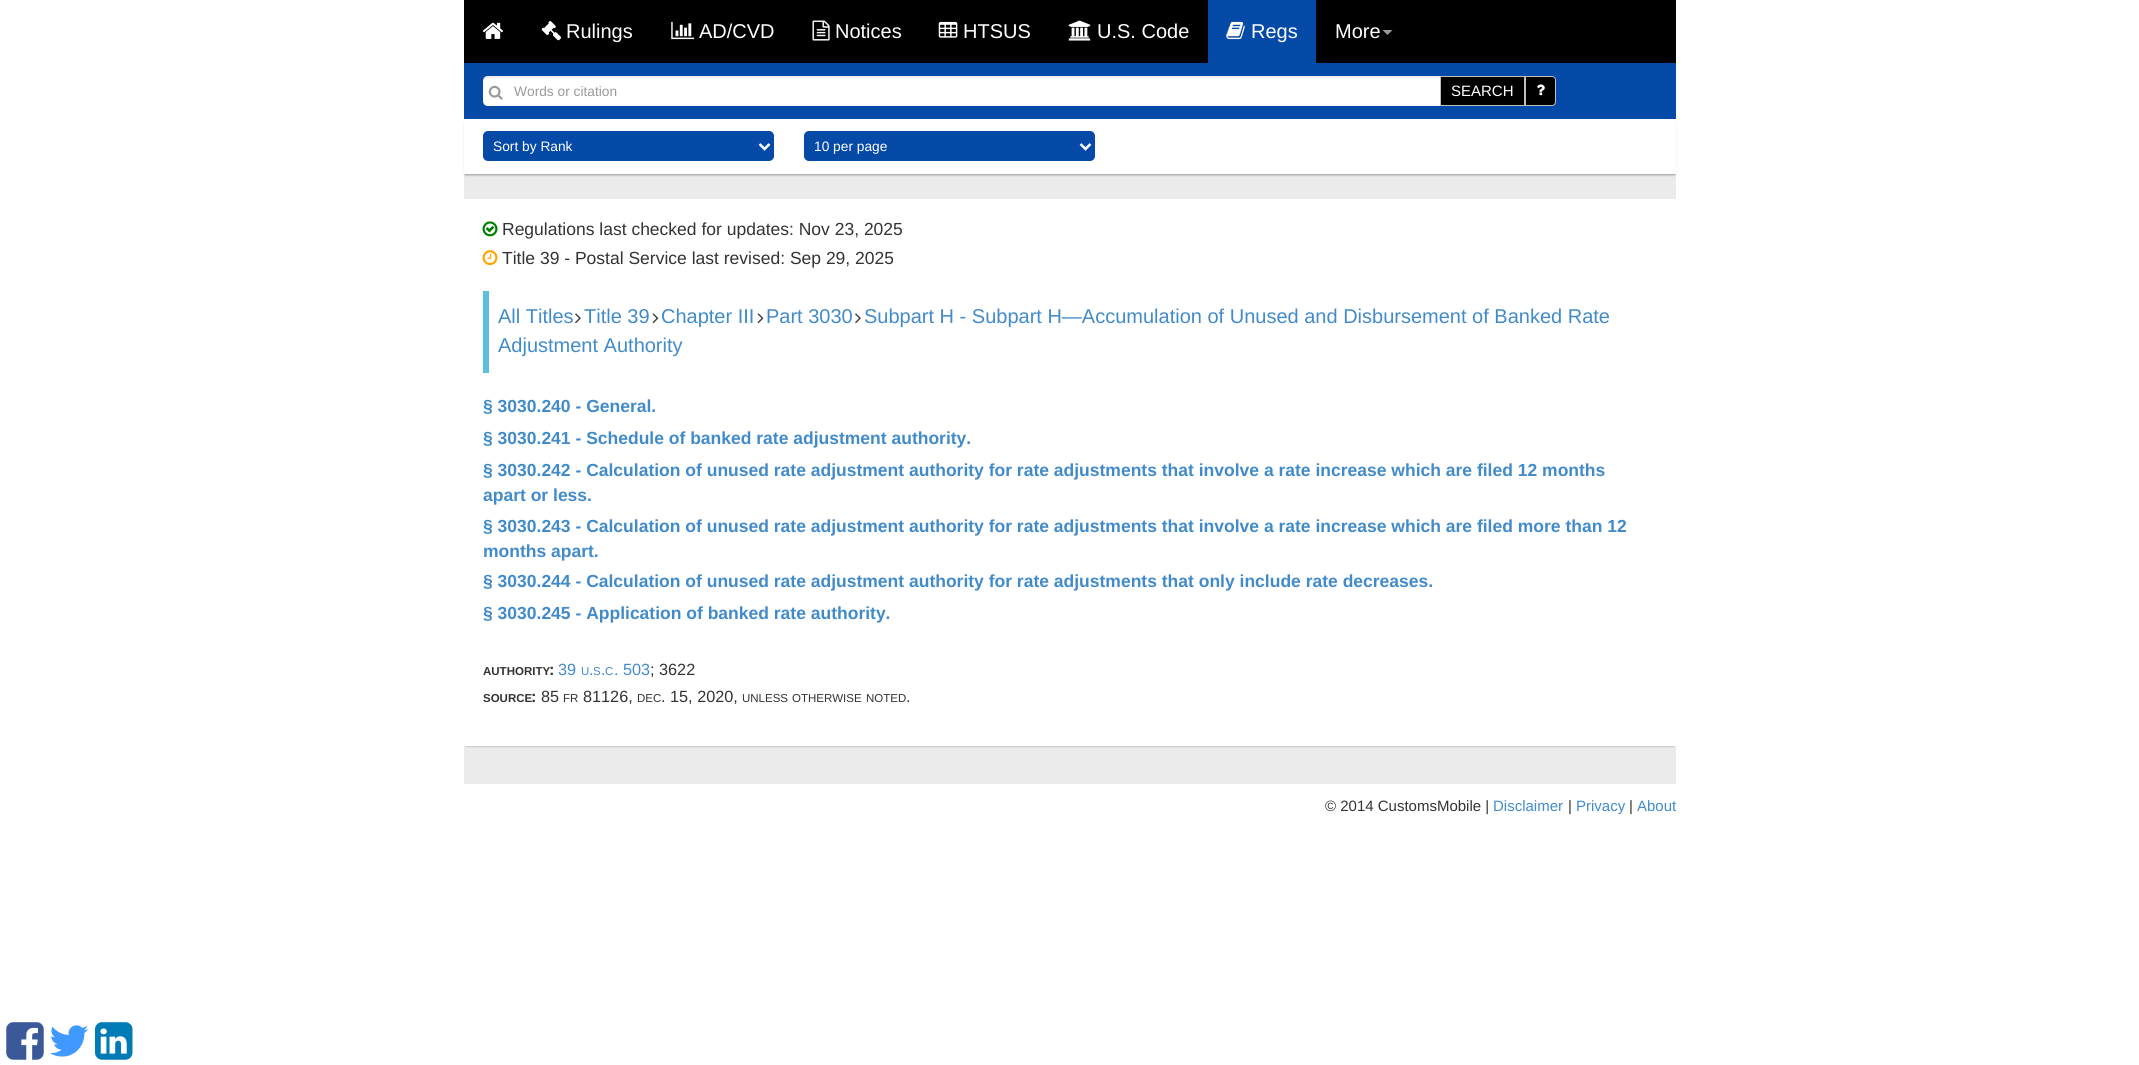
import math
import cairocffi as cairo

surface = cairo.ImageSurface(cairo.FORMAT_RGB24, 2139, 1065)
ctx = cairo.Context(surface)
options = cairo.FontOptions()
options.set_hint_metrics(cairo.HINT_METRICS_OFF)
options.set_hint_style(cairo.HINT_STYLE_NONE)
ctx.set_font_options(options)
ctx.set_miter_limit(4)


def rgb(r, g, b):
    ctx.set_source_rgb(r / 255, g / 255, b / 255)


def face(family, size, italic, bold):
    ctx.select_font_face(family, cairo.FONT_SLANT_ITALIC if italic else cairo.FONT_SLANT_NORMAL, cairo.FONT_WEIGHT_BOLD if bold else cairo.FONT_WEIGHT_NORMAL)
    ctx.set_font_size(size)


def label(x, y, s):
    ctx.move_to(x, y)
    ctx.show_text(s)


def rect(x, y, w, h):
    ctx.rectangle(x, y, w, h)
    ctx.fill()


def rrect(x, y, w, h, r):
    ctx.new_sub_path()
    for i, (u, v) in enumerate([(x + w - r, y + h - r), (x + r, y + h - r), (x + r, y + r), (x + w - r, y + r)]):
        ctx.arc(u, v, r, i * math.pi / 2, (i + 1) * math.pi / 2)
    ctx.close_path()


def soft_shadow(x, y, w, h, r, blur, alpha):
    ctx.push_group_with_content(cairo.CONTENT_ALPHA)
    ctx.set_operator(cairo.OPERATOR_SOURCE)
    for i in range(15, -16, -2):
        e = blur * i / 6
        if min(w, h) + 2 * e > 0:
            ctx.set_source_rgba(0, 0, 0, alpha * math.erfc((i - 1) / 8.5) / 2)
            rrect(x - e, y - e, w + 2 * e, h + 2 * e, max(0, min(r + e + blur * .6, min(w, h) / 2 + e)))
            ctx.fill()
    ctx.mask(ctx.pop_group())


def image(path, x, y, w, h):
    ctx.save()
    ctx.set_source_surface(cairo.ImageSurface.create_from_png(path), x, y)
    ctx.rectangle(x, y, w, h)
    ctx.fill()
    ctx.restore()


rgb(255, 255, 255)
ctx.paint()
rgb(0, 0, 0)
rect(464, 0, 1212, 63)
image('image0.png', 482, 22, 21, 17)
image('image1.png', 541, 21, 20, 20)
face('Liberation Sans', 20, 0, 0)
rgb(255, 255, 255)
label(566, 38, 'Rulings')
image('image2.png', 671, 21, 24, 19)
label(699, 38, 'AD/CVD')
image('image3.png', 812, 20, 18, 21)
label(835, 38, 'Notices')
image('image4.png', 938, 21, 20, 17)
label(963, 38, 'HTSUS')
image('image5.png', 1068, 20, 23, 21)
label(1097, 38, 'U.S. Code')
rgb(5, 74, 166)
rect(1208, 0, 108, 63)
image('image6.png', 1226, 21, 19, 19)
rgb(255, 255, 255)
label(1251, 38, 'Regs')
label(1335, 38, 'More')
rgb(153, 153, 153)
ctx.new_path()
ctx.move_to(1382.5, 30)
ctx.line_to(1392.5, 30)
ctx.line_to(1387.5, 35)
ctx.close_path()
ctx.fill()
rgb(5, 74, 166)
rect(464, 63, 1212, 56)
rgb(255, 255, 255)
ctx.new_path()
ctx.move_to(488, 76)
ctx.line_to(1441, 76)
ctx.line_to(1441, 106)
ctx.line_to(488, 106)
ctx.curve_to(485, 106, 483, 104, 483, 101)
ctx.line_to(483, 81)
ctx.curve_to(483, 78, 485, 76, 488, 76)
ctx.close_path()
ctx.fill()
image('image7.png', 488, 85, 15, 15)
ctx.set_source_rgba(0, 0, 0, 0.07)
ctx.new_path()
ctx.move_to(488, 78)
ctx.line_to(1441, 78)
ctx.line_to(1441, 76)
ctx.line_to(488, 76)
ctx.curve_to(486, 76, 484, 78, 483, 80)
ctx.curve_to(484, 79, 486, 78, 488, 78)
ctx.close_path()
ctx.fill()
face('Liberation Sans', 13.75, 0, 0)
rgb(153, 153, 153)
label(514, 96, 'Words or citation')
rgb(0, 0, 0)
ctx.rectangle(1440.5, 76.5, 84, 29)
ctx.fill_preserve()
rgb(191, 191, 191)
ctx.set_line_width(1)
ctx.stroke()
face('Liberation Sans', 15, 0, 0)
rgb(255, 255, 255)
label(1451, 96, 'SEARCH')
rgb(0, 0, 0)
ctx.new_path()
ctx.move_to(1525.5, 76.5)
ctx.line_to(1552, 76.5)
ctx.curve_to(1554, 76.5, 1555.5, 78, 1555.5, 80)
ctx.line_to(1555.5, 102)
ctx.curve_to(1555.5, 104, 1554, 105.5, 1552, 105.5)
ctx.line_to(1525.5, 105.5)
ctx.close_path()
ctx.fill_preserve()
rgb(191, 191, 191)
ctx.stroke()
image('image8.png', 1537, 84, 8, 12)
rgb(235, 235, 235)
rect(464, 174, 1212, 610)
rgb(153, 153, 153)
soft_shadow(465, 123, 1210, 52, 0, 1, 1)
rgb(255, 255, 255)
rect(464, 121, 1212, 53)
rgb(5, 74, 166)
rrect(483, 131, 291, 30, 5)
ctx.fill()
ctx.new_path()
ctx.move_to(759.5, 144)
ctx.line_to(764.5, 149)
ctx.line_to(769.5, 144)
rgb(255, 255, 255)
ctx.set_line_width(2.5)
ctx.stroke()
face('Liberation Sans', 13.75, 0, 0)
label(493, 151, 'Sort by Rank')
rgb(5, 74, 166)
rrect(804, 131, 291, 30, 5)
ctx.fill()
ctx.new_path()
ctx.move_to(1080.5, 144)
ctx.line_to(1085.5, 149)
ctx.line_to(1090.5, 144)
rgb(255, 255, 255)
ctx.stroke()
label(814, 151, '10 per page')
rgb(153, 153, 153)
soft_shadow(466, 204, 1208, 542, 0, 1, 1)
rgb(255, 255, 255)
rect(464, 199, 1212, 547)
image('image9.png', 482, 221, 16, 16)
face('Liberation Sans', 17.5, 0, 0)
rgb(51, 51, 51)
label(502, 235, 'Regulations last checked for updates: Nov 23, 2025')
image('image10.png', 482, 250, 16, 16)
label(502, 264, 'Title 39 - Postal Service last revised: Sep 29, 2025')
rgb(91, 192, 222)
rect(483, 291, 6, 82)
face('Liberation Sans', 20, 0, 0)
rgb(66, 139, 202)
label(498, 323, 'All Titles')
image('image11.png', 575, 313, 6, 11)
label(584, 323, 'Title 39')
image('image12.png', 652, 313, 7, 11)
label(661, 323, 'Chapter III')
image('image12.png', 757, 313, 7, 11)
label(766, 323, 'Part 3030')
image('image11.png', 855, 313, 6, 11)
label(864, 323, 'Subpart H - Subpart H—Accumulation of Unused and Disbursement of Banked Rate')
label(498, 352, 'Adjustment Authority')
face('Liberation Sans', 17.5, 0, 1)
label(483, 412, '§ 3030.240 - General.')
label(483, 444, '§ 3030.241 - Schedule of banked rate adjustment authority.')
label(483, 476, '§ 3030.242 - Calculation of unused rate adjustment authority for rate adjustments that involve a rate increase which are filed 12 months')
label(483, 501, 'apart or less.')
label(483, 532, '§ 3030.243 - Calculation of unused rate adjustment authority for rate adjustments that involve a rate increase which are filed more than 12')
label(483, 557, 'months apart.')
label(483, 587, '§ 3030.244 - Calculation of unused rate adjustment authority for rate adjustments that only include rate decreases.')
label(483, 619, '§ 3030.245 - Application of banked rate authority.')
face('Liberation Sans', 11.5, 0, 1)
rgb(51, 51, 51)
label(483, 675, 'AUTHORITY')
face('Liberation Sans', 16.25, 0, 1)
label(549, 675, ':')
face('Liberation Sans', 16.25, 0, 0)
rgb(66, 139, 202)
label(558, 675, '39')
face('Liberation Sans', 11.5, 0, 0)
label(581, 675, 'U')
face('Liberation Sans', 16.25, 0, 0)
label(589, 675, '.')
face('Liberation Sans', 11.5, 0, 0)
label(593, 675, 'S')
face('Liberation Sans', 16.25, 0, 0)
label(601, 675, '.')
face('Liberation Sans', 11.5, 0, 0)
label(605, 675, 'C')
face('Liberation Sans', 16.25, 0, 0)
label(614, 675, '. 503')
rgb(51, 51, 51)
label(650, 675, '; 3622')
face('Liberation Sans', 11.5, 0, 1)
label(483, 702, 'SOURCE')
face('Liberation Sans', 16.25, 0, 1)
label(531, 702, ':')
face('Liberation Sans', 16.25, 0, 0)
label(541, 702, '85')
face('Liberation Sans', 11.5, 0, 0)
label(563, 702, 'FR')
face('Liberation Sans', 16.25, 0, 0)
label(583, 702, '81126,')
face('Liberation Sans', 11.5, 0, 0)
label(637, 702, 'DEC')
face('Liberation Sans', 16.25, 0, 0)
label(661, 702, '. 15, 2020,')
face('Liberation Sans', 11.5, 0, 0)
label(742, 702, 'UNLESS')
label(792, 702, 'OTHERWISE')
label(866, 702, 'NOTED')
face('Liberation Sans', 16.25, 0, 0)
label(906, 702, '.')
face('Liberation Sans', 15, 0, 0)
label(1325, 811, '© 2014 CustomsMobile |')
rgb(66, 139, 202)
label(1493, 811, 'Disclaimer')
rgb(51, 51, 51)
label(1568, 811, '|')
rgb(66, 139, 202)
label(1576, 811, 'Privacy')
rgb(51, 51, 51)
label(1629, 811, '|')
rgb(66, 139, 202)
label(1637, 811, 'About')
image('image13.png', 6, 1022, 38, 38)
image('image14.png', 50, 1025, 39, 32)
image('image15.png', 95, 1022, 38, 38)
surface.write_to_png('render.png')
